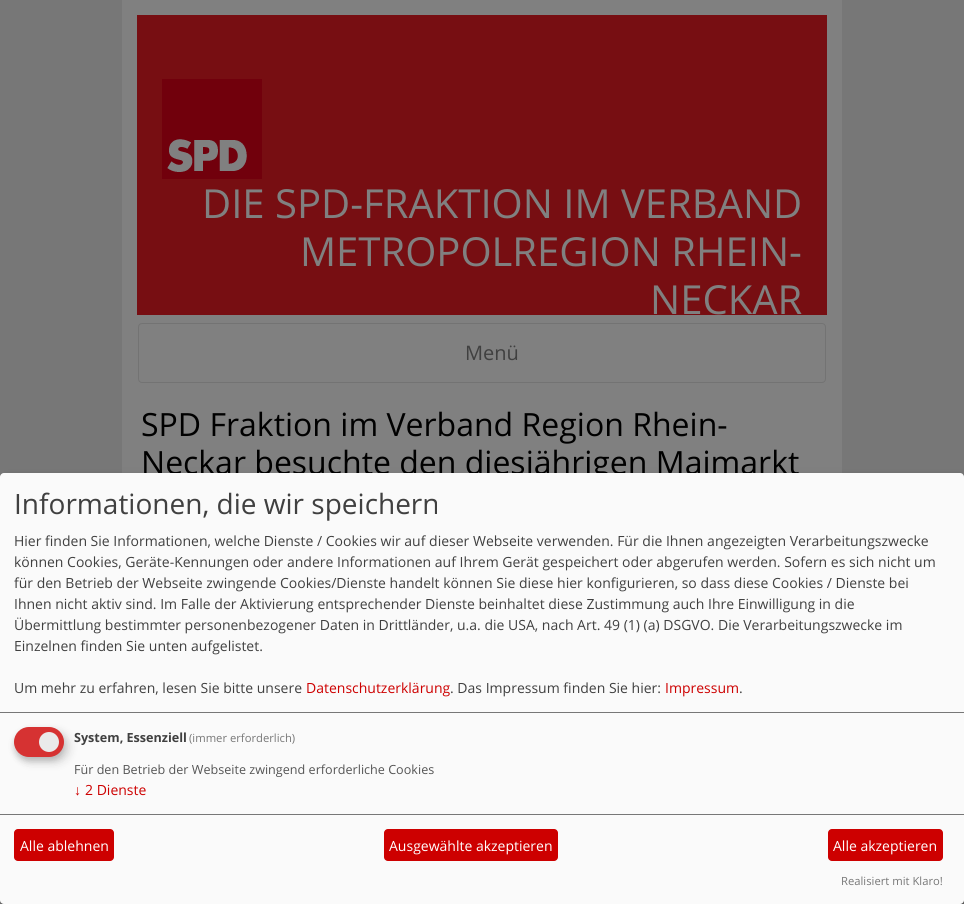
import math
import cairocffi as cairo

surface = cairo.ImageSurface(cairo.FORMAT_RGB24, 964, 904)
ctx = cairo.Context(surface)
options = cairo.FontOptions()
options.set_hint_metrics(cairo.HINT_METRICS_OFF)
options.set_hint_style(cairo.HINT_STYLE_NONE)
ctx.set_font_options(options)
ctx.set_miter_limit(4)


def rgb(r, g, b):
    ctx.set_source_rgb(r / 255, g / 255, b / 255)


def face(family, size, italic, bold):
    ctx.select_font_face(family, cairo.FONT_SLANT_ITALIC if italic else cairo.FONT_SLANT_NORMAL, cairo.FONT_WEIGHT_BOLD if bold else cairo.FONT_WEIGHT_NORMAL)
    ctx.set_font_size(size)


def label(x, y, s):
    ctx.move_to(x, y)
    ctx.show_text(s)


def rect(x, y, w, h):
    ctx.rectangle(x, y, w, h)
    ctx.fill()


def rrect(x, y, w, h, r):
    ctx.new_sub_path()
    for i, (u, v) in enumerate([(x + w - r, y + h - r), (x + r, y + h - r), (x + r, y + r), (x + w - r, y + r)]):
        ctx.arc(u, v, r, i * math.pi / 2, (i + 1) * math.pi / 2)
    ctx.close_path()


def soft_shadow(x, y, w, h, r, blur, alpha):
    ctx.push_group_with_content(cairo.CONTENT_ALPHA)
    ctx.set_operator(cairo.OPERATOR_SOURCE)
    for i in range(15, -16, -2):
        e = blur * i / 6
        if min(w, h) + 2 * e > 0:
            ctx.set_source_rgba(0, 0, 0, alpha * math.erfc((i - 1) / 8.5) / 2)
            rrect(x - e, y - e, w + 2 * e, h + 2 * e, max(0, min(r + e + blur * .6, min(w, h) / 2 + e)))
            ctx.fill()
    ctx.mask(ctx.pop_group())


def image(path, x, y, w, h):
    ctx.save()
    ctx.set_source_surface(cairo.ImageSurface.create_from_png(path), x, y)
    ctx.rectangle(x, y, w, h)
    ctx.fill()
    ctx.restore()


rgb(119, 119, 119)
ctx.paint()
rgb(128, 128, 128)
rect(122, 0, 720, 473)
rgb(119, 14, 18)
rect(137, 15, 690, 300)
image('image0.png', 162, 79, 100, 100)
face('Open Sans', 40, 0, 0)
rgb(128, 128, 128)
label(202, 218, 'DIE SPD-FRAKTION IM VERBAND')
label(300, 266, 'METROPOLREGION RHEIN-')
label(650, 314, 'NECKAR')
rrect(138.5, 323.5, 687, 59, 3.5)
rgb(115, 115, 115)
ctx.set_line_width(1)
ctx.stroke()
face('Open Sans', 20, 0, 0)
rgb(64, 64, 64)
label(465, 360, 'Menü')
face('Open Sans', 32, 0, 0)
rgb(0, 0, 0)
label(141, 436, 'SPD Fraktion im Verband Region Rhein-')
label(141, 474, 'Neckar besuchte den diesjährigen Maimarkt')
rgb(0, 0, 0)
soft_shadow(5, 478, 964, 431, 4, 5, 0.19)
soft_shadow(0, 477, 964, 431, 4, 3, 0.2)
rgb(250, 250, 250)
rrect(0, 473, 964, 431, 4)
ctx.fill()
rgb(119, 119, 119)
rect(0, 712, 964, 1)
face('Open Sans', 28, 0, 0)
rgb(64, 64, 64)
label(14, 514, 'Informationen, die wir speichern')
face('Open Sans', 14, 0, 0)
label(14, 546, 'Hier finden Sie Informationen, welche Dienste / Cookies wir auf dieser Webseite verwenden. Für die Ihnen angezeigten Verarbeitungszwecke')
label(14, 567, 'können Cookies, Geräte-Kennungen oder andere Informationen auf Ihrem Gerät gespeichert oder abgerufen werden. Sofern es sich nicht um')
label(14, 588, 'für den Betrieb der Webseite zwingende Cookies/Dienste handelt können Sie diese hier konfigurieren, so dass diese Cookies / Dienste bei')
label(14, 609, 'Ihnen nicht aktiv sind. Im Falle der Aktivierung entsprechender Dienste beinhaltet diese Zustimmung auch Ihre Einwilligung in die')
label(14, 630, 'Übermittlung bestimmter personenbezogener Daten in Drittländer, u.a. die USA, nach Art. 49 (1) (a) DSGVO. Die Verarbeitungszwecke im')
label(14, 651, 'Einzelnen finden Sie unten aufgelistet.')
label(14, 693, 'Um mehr zu erfahren, lesen Sie bitte unsere')
rgb(205, 0, 0)
label(306, 693, 'Datenschutzerklärung')
rgb(64, 64, 64)
label(450, 693, '. Das Impressum finden Sie hier:')
rgb(205, 0, 0)
label(665, 693, 'Impressum')
rgb(64, 64, 64)
label(739, 693, '.')
rgb(0, 0, 0)
soft_shadow(19, 732, 50, 30, 15, 5, 0.15)
rgb(50, 50, 50)
soft_shadow(14, 731, 50, 30, 15, 3, 0.2)
rgb(214, 50, 50)
rrect(14, 727, 50, 30, 15)
ctx.fill()
rgb(234, 234, 234)
ctx.arc(49, 742, 10, 0, 2 * math.pi)
ctx.fill()
face('Open Sans', 12.6, 0, 1)
rgb(64, 64, 64)
label(74, 742, 'System, Essenziell')
face('Open Sans', 11.25, 0, 0)
rgb(119, 119, 119)
label(189, 742, '(immer erforderlich)')
face('Open Sans', 12.6, 0, 0)
rgb(85, 85, 85)
label(74, 774, 'Für den Betrieb der Webseite zwingend erforderliche Cookies')
face('Liberation Sans', 14, 0, 0)
rgb(205, 0, 0)
label(74, 795, '↓')
face('Open Sans', 14, 0, 0)
label(85, 795, '2 Dienste')
rgb(119, 119, 119)
rect(0, 814, 964, 1)
rgb(205, 0, 0)
rrect(14, 829, 100, 32, 4)
ctx.fill()
rgb(255, 255, 255)
label(20, 851, 'Alle ablehnen')
rgb(205, 0, 0)
rrect(384, 829, 174, 32, 4)
ctx.fill()
rgb(255, 255, 255)
label(389, 851, 'Ausgewählte akzeptieren')
rgb(205, 0, 0)
rrect(828, 829, 115, 32, 4)
ctx.fill()
rgb(255, 255, 255)
label(833, 851, 'Alle akzeptieren')
face('Open Sans', 11.25, 0, 0)
rgb(119, 119, 119)
label(841, 885, 'Realisiert mit Klaro!')
surface.write_to_png('render.png')
